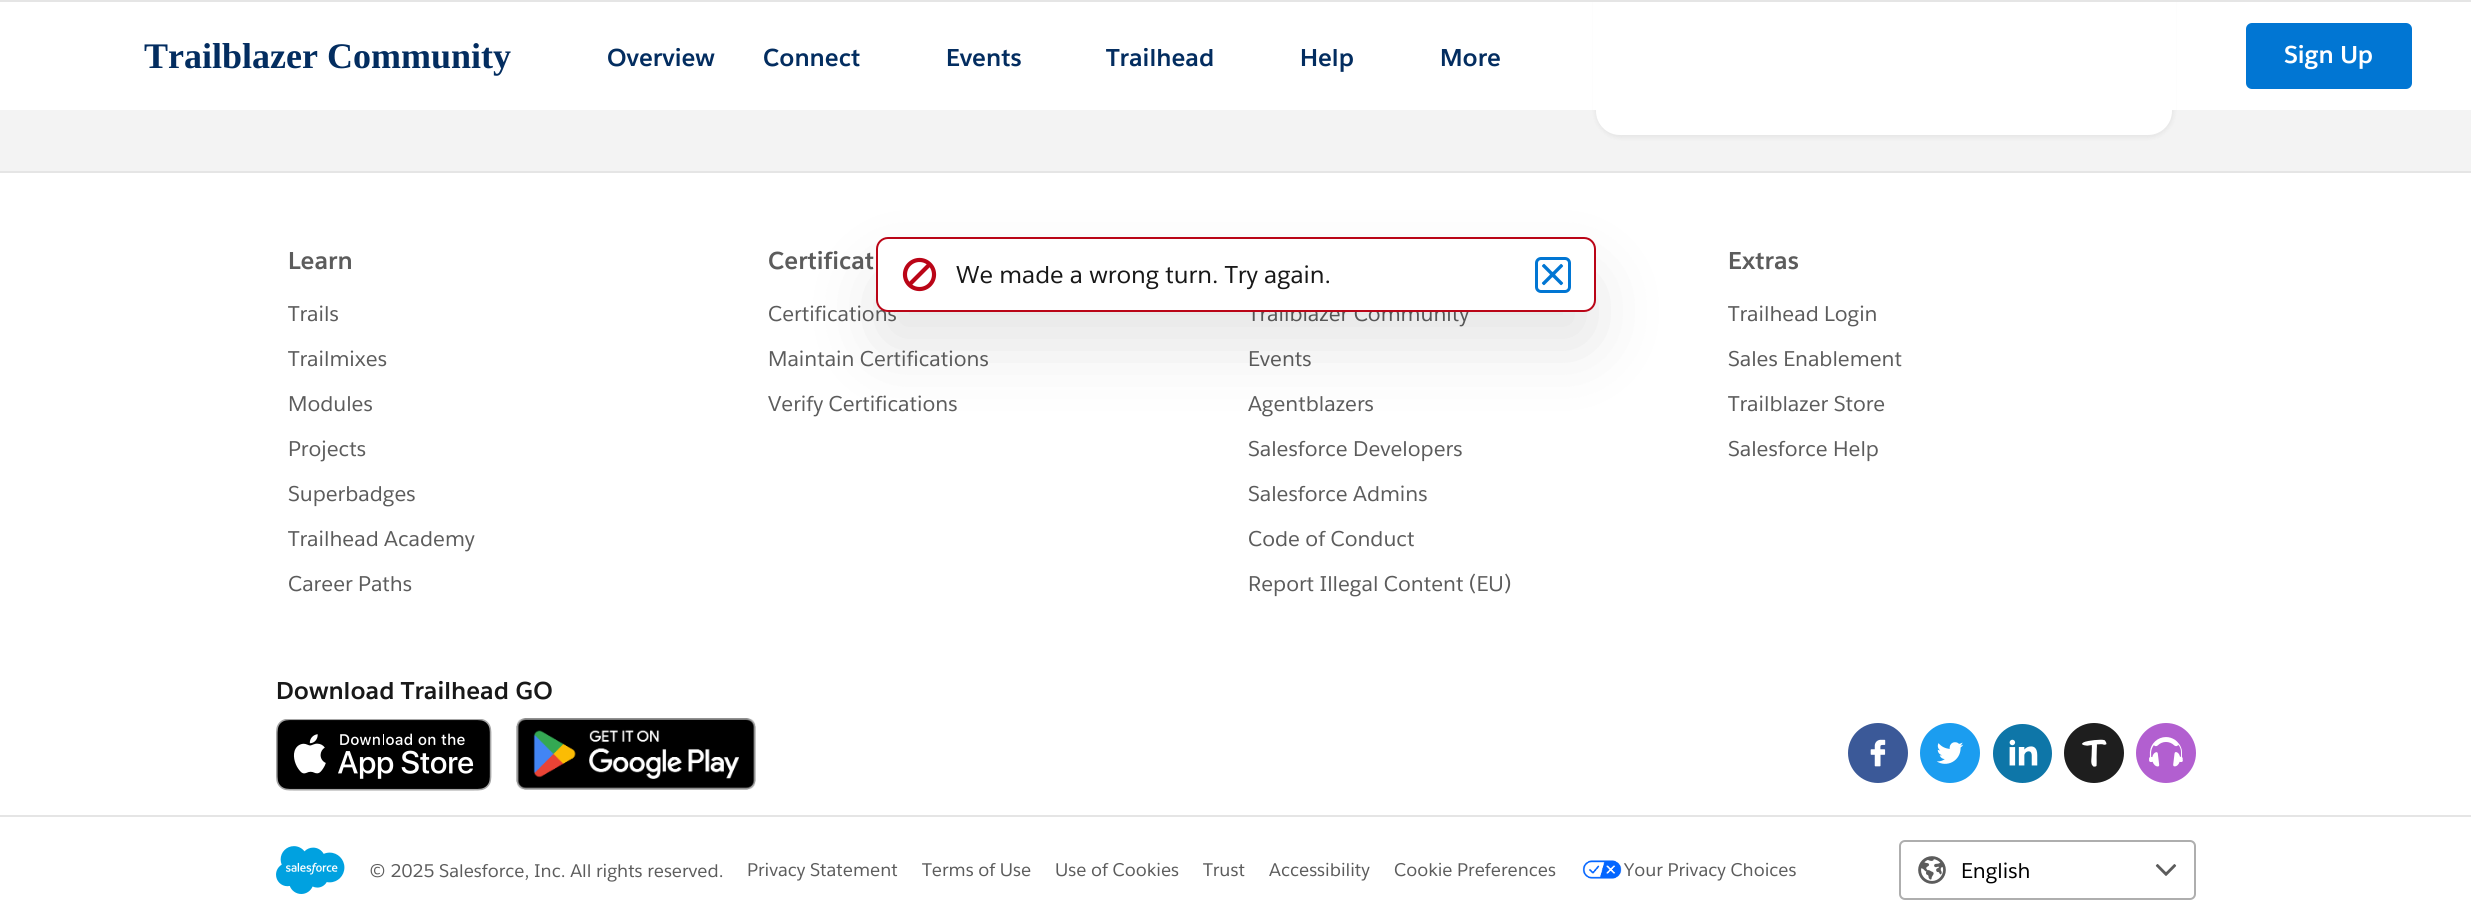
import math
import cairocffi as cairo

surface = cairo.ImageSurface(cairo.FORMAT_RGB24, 2471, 924)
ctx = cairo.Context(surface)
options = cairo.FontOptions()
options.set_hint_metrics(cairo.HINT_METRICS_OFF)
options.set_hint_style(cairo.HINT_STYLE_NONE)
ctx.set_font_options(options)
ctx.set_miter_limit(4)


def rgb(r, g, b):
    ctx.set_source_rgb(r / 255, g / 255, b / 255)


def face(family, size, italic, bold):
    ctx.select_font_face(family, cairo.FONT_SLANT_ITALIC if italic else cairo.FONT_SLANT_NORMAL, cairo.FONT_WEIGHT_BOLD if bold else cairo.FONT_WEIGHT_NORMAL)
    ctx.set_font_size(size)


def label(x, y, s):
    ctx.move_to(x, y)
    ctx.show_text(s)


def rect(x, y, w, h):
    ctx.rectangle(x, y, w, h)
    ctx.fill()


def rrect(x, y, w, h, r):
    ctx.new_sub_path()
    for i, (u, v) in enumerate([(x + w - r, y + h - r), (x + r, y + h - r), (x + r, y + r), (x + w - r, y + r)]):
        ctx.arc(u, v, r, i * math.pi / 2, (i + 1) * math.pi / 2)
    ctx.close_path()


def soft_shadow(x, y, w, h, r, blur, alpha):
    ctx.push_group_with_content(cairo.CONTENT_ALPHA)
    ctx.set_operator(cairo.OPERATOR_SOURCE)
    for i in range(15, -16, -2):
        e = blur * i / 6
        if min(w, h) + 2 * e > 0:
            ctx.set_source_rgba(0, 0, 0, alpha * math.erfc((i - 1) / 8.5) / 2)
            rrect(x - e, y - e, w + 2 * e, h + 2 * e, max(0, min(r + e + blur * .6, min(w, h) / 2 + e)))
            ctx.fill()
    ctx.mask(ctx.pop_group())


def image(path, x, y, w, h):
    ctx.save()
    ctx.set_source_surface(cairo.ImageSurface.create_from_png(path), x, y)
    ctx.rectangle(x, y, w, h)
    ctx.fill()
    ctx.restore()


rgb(255, 255, 255)
ctx.paint()
rgb(243, 243, 243)
rect(0, 110, 2471, 61)
rgb(24, 24, 24)
soft_shadow(1595, -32, 579, 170, 26, 2, 0.06)
rgb(255, 255, 255)
rrect(1596, -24, 576, 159, 24)
ctx.fill()
rect(1593, 2, 583, 108)
rgb(229, 229, 229)
rect(0, 0, 2471, 2)
face('Liberation Serif', 36, 0, 1)
rgb(3, 45, 96)
label(144, 68, 'Trailblazer Community')
face('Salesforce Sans', 24, 0, 1)
label(607, 66, 'Overview')
label(763, 66, 'Connect')
label(946, 66, 'Events')
label(1106, 66, 'Trailhead')
label(1300, 66, 'Help')
label(1440, 66, 'More')
rgb(1, 118, 211)
rrect(2247.5, 24.5, 163, 63, 4.5)
ctx.fill_preserve()
ctx.set_line_width(3)
ctx.stroke()
rgb(255, 255, 255)
label(2284, 63, 'Sign Up')
rgb(229, 229, 229)
rect(0, 171, 2471, 2)
rgb(92, 92, 92)
label(288, 269, 'Learn')
face('Salesforce Sans', 21, 0, 0)
label(288, 321, 'Trails')
label(288, 366, 'Trailmixes')
label(288, 411, 'Modules')
label(288, 456, 'Projects')
label(288, 501, 'Superbadges')
label(288, 546, 'Trailhead Academy')
label(288, 591, 'Career Paths')
face('Salesforce Sans', 24, 0, 1)
label(768, 269, 'Certificat')
face('Salesforce Sans', 21, 0, 0)
label(768, 321, 'Certifications')
label(768, 366, 'Maintain Certifications')
label(768, 411, 'Verify Certifications')
label(1248, 321, 'Trailblazer Community')
label(1248, 366, 'Events')
label(1248, 411, 'Agentblazers')
label(1248, 456, 'Salesforce Developers')
label(1248, 501, 'Salesforce Admins')
label(1248, 546, 'Code of Conduct')
label(1248, 591, 'Report Illegal Content (EU)')
face('Salesforce Sans', 24, 0, 1)
label(1728, 269, 'Extras')
face('Salesforce Sans', 21, 0, 0)
label(1728, 321, 'Trailhead Login')
label(1728, 366, 'Sales Enablement')
label(1728, 411, 'Trailblazer Store')
label(1728, 456, 'Salesforce Help')
face('Salesforce Sans', 24, 0, 1)
rgb(24, 24, 24)
label(276, 699, 'Download Trailhead GO')
image('image0.png', 276, 719, 216, 72)
image('image1.png', 516, 718, 240, 72)
image('image2.png', 1848, 723, 60, 60)
image('image3.png', 1920, 723, 60, 60)
image('image4.png', 1993, 724, 59, 59)
image('image5.png', 2064, 723, 60, 60)
image('image6.png', 2136, 723, 60, 60)
rgb(229, 229, 229)
rect(0, 815, 2471, 2)
image('image7.png', 276, 846, 69, 48)
face('Salesforce Sans', 18, 0, 0)
rgb(92, 92, 92)
label(369, 877, '© 2025 Salesforce, Inc. All rights reserved.')
label(747, 876, 'Privacy Statement')
label(922, 876, 'Terms of Use')
label(1055, 876, 'Use of Cookies')
label(1203, 876, 'Trust')
label(1269, 876, 'Accessibility')
label(1394, 876, 'Cookie Preferences')
image('image8.png', 1582, 860, 40, 19)
label(1624, 876, 'Your Privacy Choices')
rrect(1900, 841, 295, 58, 5)
rgb(174, 174, 174)
ctx.set_line_width(2)
ctx.stroke()
image('image9.png', 1918, 856, 28, 28)
face('Salesforce Sans', 21, 0, 0)
rgb(0, 0, 0)
label(1961, 878, 'English')
image('image10.png', 2155, 864, 22, 12)
rgb(24, 24, 24)
soft_shadow(879, 276, 714, 69, 9, 36, 0.12)
rgb(255, 255, 255)
rrect(877, 238, 718, 73, 11)
ctx.fill_preserve()
rgb(186, 5, 23)
ctx.stroke()
image('image11.png', 902, 257, 35, 35)
face('Salesforce Sans', 24, 0, 0)
rgb(24, 24, 24)
label(956, 283, 'We made a wrong turn. Try again.')
rrect(1536.5, 258.5, 33, 33, 4.5)
rgb(1, 118, 211)
ctx.set_line_width(3)
ctx.stroke()
image('image12.png', 1541, 263, 23, 23)
surface.write_to_png('render.png')
